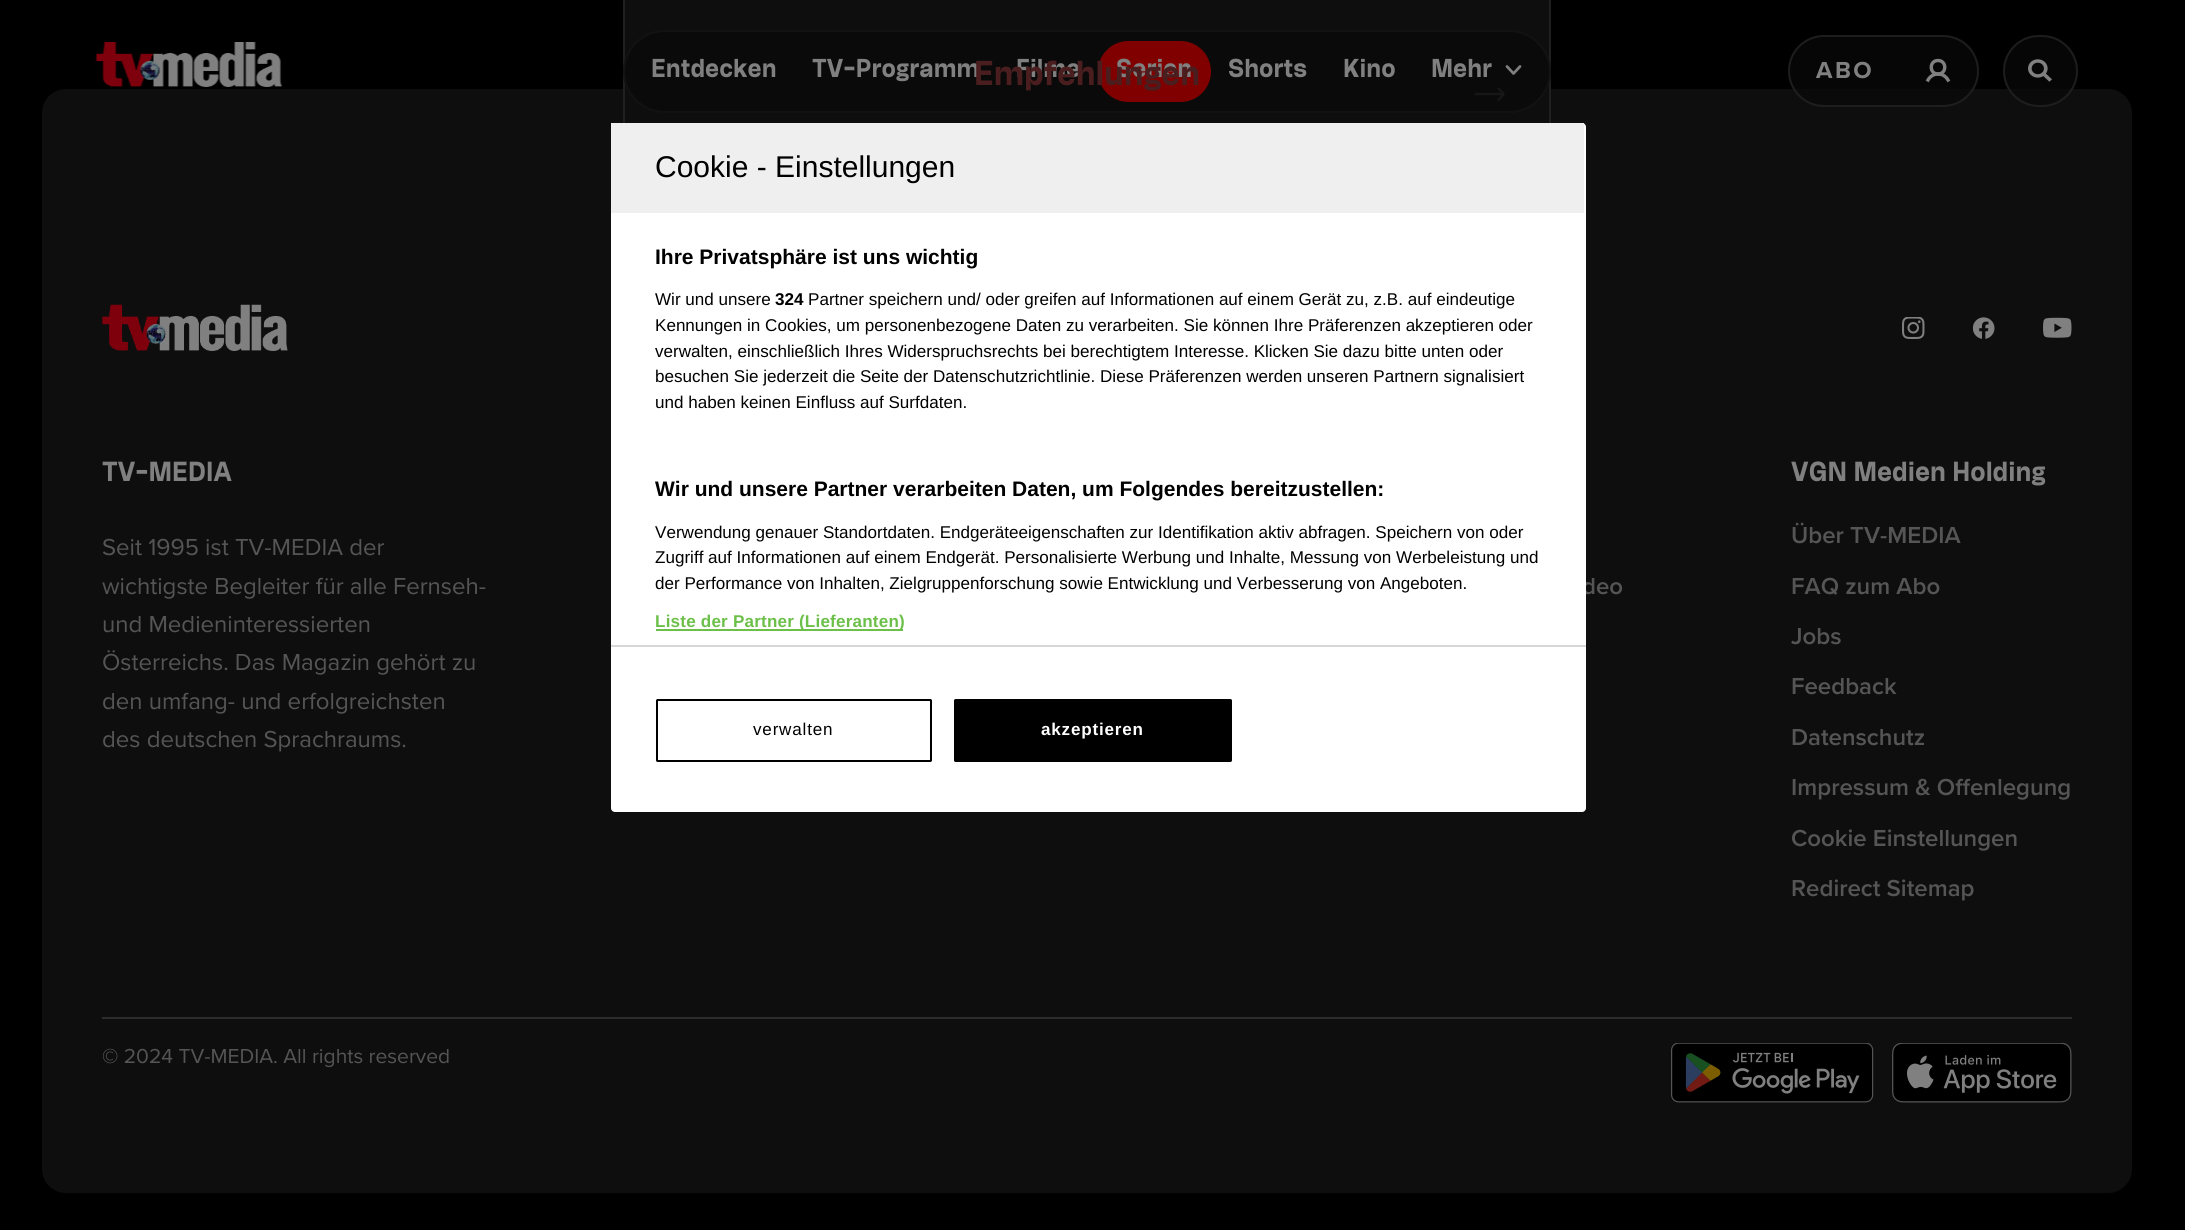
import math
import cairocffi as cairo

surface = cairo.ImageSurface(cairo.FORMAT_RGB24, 2185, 1230)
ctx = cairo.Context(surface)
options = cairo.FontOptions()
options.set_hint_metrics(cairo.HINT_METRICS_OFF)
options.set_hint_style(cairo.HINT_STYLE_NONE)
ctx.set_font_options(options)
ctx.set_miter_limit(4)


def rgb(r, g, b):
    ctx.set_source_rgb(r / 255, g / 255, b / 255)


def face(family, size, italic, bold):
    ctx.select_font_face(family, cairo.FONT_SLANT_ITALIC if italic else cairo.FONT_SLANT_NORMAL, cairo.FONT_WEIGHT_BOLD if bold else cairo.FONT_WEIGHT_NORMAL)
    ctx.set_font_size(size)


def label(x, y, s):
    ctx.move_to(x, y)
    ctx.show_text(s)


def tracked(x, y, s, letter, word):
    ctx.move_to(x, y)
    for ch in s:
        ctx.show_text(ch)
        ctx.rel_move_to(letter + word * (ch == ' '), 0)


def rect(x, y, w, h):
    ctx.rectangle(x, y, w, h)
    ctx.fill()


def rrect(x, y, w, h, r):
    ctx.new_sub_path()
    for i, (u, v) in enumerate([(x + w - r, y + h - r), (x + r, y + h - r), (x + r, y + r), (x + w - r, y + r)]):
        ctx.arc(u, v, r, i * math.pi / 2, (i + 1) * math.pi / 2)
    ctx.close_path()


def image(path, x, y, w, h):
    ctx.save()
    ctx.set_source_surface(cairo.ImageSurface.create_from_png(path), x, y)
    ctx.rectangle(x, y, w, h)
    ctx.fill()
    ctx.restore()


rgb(0, 0, 0)
ctx.paint()
image('image0.png', 95, 42, 187, 45)
gradient = cairo.LinearGradient(42, 641, 2132, 640)
gradient.add_color_stop_rgba(0, 0.055, 0.055, 0.059, 1)
gradient.add_color_stop_rgba(1, 0.055, 0.055, 0.055, 1)
ctx.set_source(gradient)
rrect(42, 89, 2090, 1104, 24)
ctx.fill()
gradient = cairo.LinearGradient(1087, -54, 1087, 243)
gradient.add_color_stop_rgba(0, 0.055, 0.055, 0.059, 1)
gradient.add_color_stop_rgba(0.5, 0.055, 0.055, 0.059, 1)
gradient.add_color_stop_rgba(1, 0.043, 0.043, 0.047, 1)
ctx.set_source(gradient)
rect(623, 0, 928, 89)
ctx.rectangle(624, -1, 926, 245)
ctx.set_source_rgba(0.165, 0.165, 0.173, 0.65)
ctx.stroke()
ctx.new_path()
ctx.move_to(1475, 94)
ctx.line_to(1504, 94)
ctx.move_to(1504, 94)
ctx.line_to(1498, 88)
ctx.move_to(1504, 94)
ctx.line_to(1498, 100.5)
rgb(82, 82, 83)
ctx.set_line_width(2.2)
ctx.stroke()
ctx.set_source_rgba(0.039, 0.039, 0.039, 0.8)
rrect(623, 30, 928, 83, 41.5)
ctx.fill()
rrect(624, 31, 926, 81, 40.5)
ctx.set_source_rgba(0.094, 0.094, 0.094, 0.65)
ctx.set_line_width(2)
ctx.stroke()
rgb(128, 0, 0)
rrect(1098, 41, 113, 61, 30.5)
ctx.fill()
face('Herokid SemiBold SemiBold', 22.5, 0, 0)
rgb(128, 128, 128)
label(651, 77, 'Entdecken')
label(812, 77, 'TV-Programm')
label(1016, 77, 'Filme')
label(1116, 77, 'Serien')
face('Herokid SemiBold SemiBold', 30, 0, 0)
rgb(74, 30, 30)
label(974, 85, 'Empfehlungen')
face('Herokid SemiBold SemiBold', 22.5, 0, 0)
rgb(128, 128, 128)
label(1431, 77, 'Mehr')
ctx.new_path()
ctx.move_to(1507, 66.5)
ctx.line_to(1513.5, 73.5)
ctx.line_to(1520, 66.5)
ctx.set_line_width(2.7)
ctx.set_line_cap(cairo.LINE_CAP_ROUND)
ctx.set_line_join(cairo.LINE_JOIN_ROUND)
ctx.stroke()
label(1228, 77, 'Shorts')
label(1343, 77, 'Kino')
ctx.set_source_rgba(0.039, 0.039, 0.039, 0.7)
rrect(1788, 35, 191, 72, 36)
ctx.fill()
rrect(1789, 36, 189, 70, 35)
ctx.set_source_rgba(0.165, 0.165, 0.173, 0.65)
ctx.set_line_width(2)
ctx.set_line_cap(cairo.LINE_CAP_BUTT)
ctx.set_line_join(cairo.LINE_JOIN_MITER)
ctx.stroke()
face('Proxima Nova', 24, 0, 1)
rgb(128, 128, 128)
tracked(1816, 78, 'ABO', 2.5, 0)
ctx.new_path()
ctx.move_to(1938, 74)
ctx.curve_to(1947, 74, 1947, 60.5, 1938, 60.5)
ctx.curve_to(1929, 60.5, 1929, 74, 1938, 74)
ctx.close_path()
ctx.set_line_width(3.4)
ctx.set_line_cap(cairo.LINE_CAP_ROUND)
ctx.set_line_join(cairo.LINE_JOIN_ROUND)
ctx.stroke()
ctx.new_path()
ctx.move_to(1928, 80)
ctx.curve_to(1932.5, 72, 1943.5, 72, 1948, 80)
ctx.set_line_cap(cairo.LINE_CAP_SQUARE)
ctx.stroke()
ctx.set_source_rgba(0.039, 0.039, 0.039, 0.7)
rrect(2003, 35, 75, 72, 36)
ctx.fill()
rrect(2004, 36, 73, 70, 35)
ctx.set_source_rgba(0.165, 0.165, 0.173, 0.65)
ctx.set_line_width(2)
ctx.set_line_cap(cairo.LINE_CAP_BUTT)
ctx.set_line_join(cairo.LINE_JOIN_MITER)
ctx.stroke()
image('image1.png', 2028, 59, 24, 23)
gradient = cairo.LinearGradient(42, 641, 2132, 640)
gradient.add_color_stop_rgba(0, 0.173, 0.173, 0.176, 1)
gradient.add_color_stop_rgba(1, 0.173, 0.173, 0.173, 1)
ctx.set_source(gradient)
rect(102, 1017, 1970, 2)
image('image2.png', 102, 304, 186, 47)
image('image3.png', 1902, 317, 23, 22)
image('image4.png', 1973, 317, 22, 22)
image('image5.png', 2043, 317, 29, 21)
face('Herokid SemiBold SemiBold', 24, 0, 0)
rgb(128, 128, 128)
label(102, 481, 'TV-MEDIA')
face('Proxima Nova', 24, 0, 0)
rgb(85, 85, 85)
label(102, 555, 'Seit 1995 ist TV-MEDIA der')
label(102, 594, 'wichtigste Begleiter für alle Fernseh-')
label(102, 632, 'und Medieninteressierten')
label(102, 670, 'Österreichs. Das Magazin gehört zu')
label(102, 709, 'den umfang- und erfolgreichsten')
label(102, 747, 'des deutschen Sprachraums.')
face('Proxima Nova SemiBold', 24, 0, 0)
label(1582, 594, 'deo')
face('Herokid SemiBold SemiBold', 24, 0, 0)
rgb(128, 128, 128)
label(1791, 481, 'VGN Medien Holding')
face('Proxima Nova SemiBold', 24, 0, 0)
rgb(85, 85, 85)
label(1791, 543, 'Über TV-MEDIA')
label(1791, 594, 'FAQ zum Abo')
label(1791, 644, 'Jobs')
label(1791, 694, 'Feedback')
label(1791, 745, 'Datenschutz')
label(1791, 795, 'Impressum & Offenlegung')
label(1791, 846, 'Cookie Einstellungen')
label(1791, 896, 'Redirect Sitemap')
face('Proxima Nova', 21, 0, 0)
label(102, 1063, '© 2024 TV-MEDIA. All rights reserved')
image('image6.png', 1671, 1043, 203, 60)
image('image7.png', 1892, 1043, 180, 60)
rgb(255, 255, 255)
rrect(611, 123, 975, 689, 4)
ctx.fill()
rgb(239, 239, 239)
rect(611, 123, 973, 90)
face('Liberation Sans', 30, 0, 0)
rgb(0, 0, 0)
label(655, 177, 'Cookie - Einstellungen')
face('Liberation Sans', 21, 0, 1)
label(655, 264, 'Ihre Privatsphäre ist uns wichtig')
face('Liberation Sans', 17.07, 0, 0)
label(655, 305, 'Wir und unsere')
face('Liberation Sans', 17.07, 0, 1)
label(775, 305, '324')
face('Liberation Sans', 17.07, 0, 0)
label(808, 305, 'Partner speichern und/ oder greifen auf Informationen auf einem Gerät zu, z.B. auf eindeutige')
label(655, 331, 'Kennungen in Cookies, um personenbezogene Daten zu verarbeiten. Sie können Ihre Präferenzen akzeptieren oder')
label(655, 357, 'verwalten, einschließlich Ihres Widerspruchsrechts bei berechtigtem Interesse. Klicken Sie dazu bitte unten oder')
label(655, 382, 'besuchen Sie jederzeit die Seite der Datenschutzrichtlinie. Diese Präferenzen werden unseren Partnern signalisiert')
label(655, 408, 'und haben keinen Einfluss auf Surfdaten.')
face('Liberation Sans', 21, 0, 1)
label(655, 496, 'Wir und unsere Partner verarbeiten Daten, um Folgendes bereitzustellen:')
face('Liberation Sans', 17.07, 0, 0)
label(655, 538, 'Verwendung genauer Standortdaten. Endgeräteeigenschaften zur Identifikation aktiv abfragen. Speichern von oder')
label(655, 563, 'Zugriff auf Informationen auf einem Endgerät. Personalisierte Werbung und Inhalte, Messung von Werbeleistung und')
label(655, 589, 'der Performance von Inhalten, Zielgruppenforschung sowie Entwicklung und Verbesserung von Angeboten.')
rgb(108, 192, 74)
rect(656, 629, 247, 2)
face('Liberation Sans', 17.07, 0, 1)
tracked(655, 627, 'Liste der Partner (Lieferanten)', 0.2, 0)
rgb(215, 215, 215)
rect(611, 645, 975, 2)
rrect(657, 700, 274, 61, 0.5)
rgb(0, 0, 0)
ctx.stroke()
face('Liberation Sans', 17.07, 0, 0)
tracked(753, 735, 'verwalten', 0.8, 0)
rrect(955, 700, 276, 61, 0.5)
ctx.fill_preserve()
ctx.stroke()
face('Liberation Sans', 17.07, 0, 1)
rgb(255, 255, 255)
tracked(1041, 735, 'akzeptieren', 0.8, 0)
surface.write_to_png('render.png')
